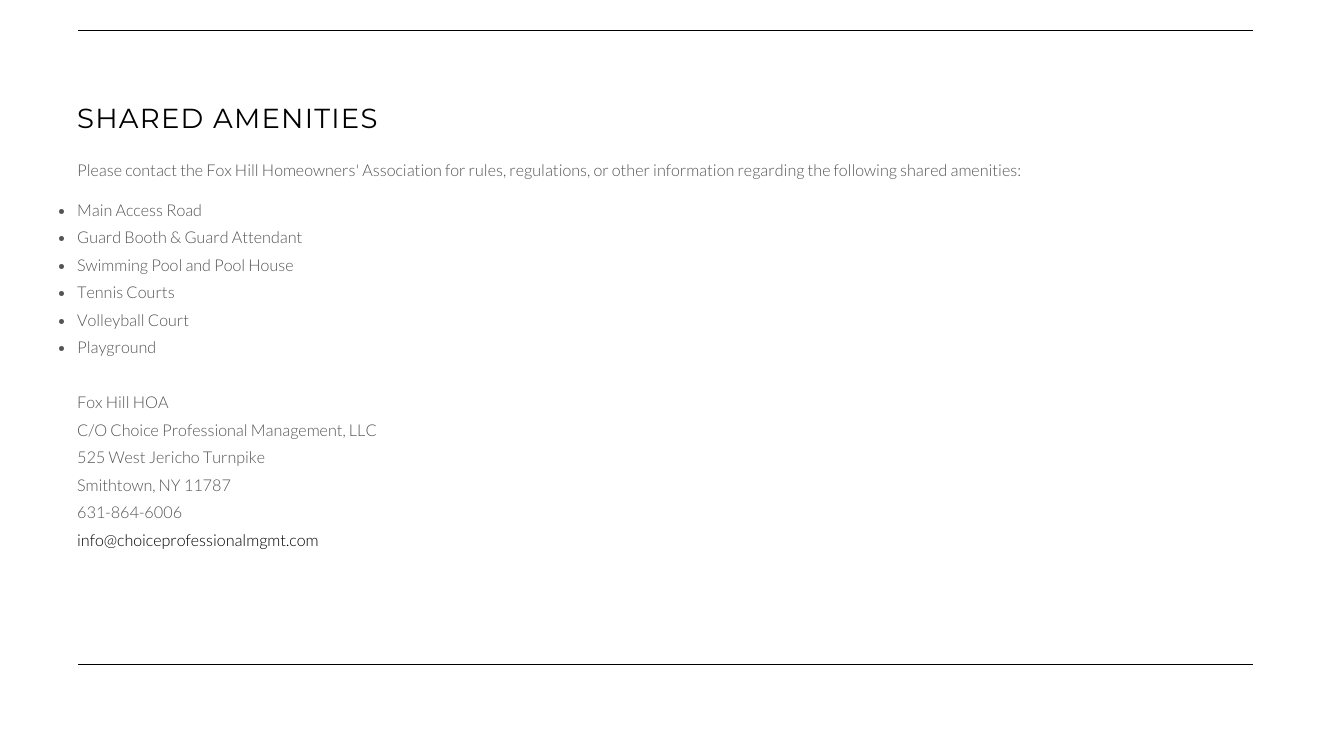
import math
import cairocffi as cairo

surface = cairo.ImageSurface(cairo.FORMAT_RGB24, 1328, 750)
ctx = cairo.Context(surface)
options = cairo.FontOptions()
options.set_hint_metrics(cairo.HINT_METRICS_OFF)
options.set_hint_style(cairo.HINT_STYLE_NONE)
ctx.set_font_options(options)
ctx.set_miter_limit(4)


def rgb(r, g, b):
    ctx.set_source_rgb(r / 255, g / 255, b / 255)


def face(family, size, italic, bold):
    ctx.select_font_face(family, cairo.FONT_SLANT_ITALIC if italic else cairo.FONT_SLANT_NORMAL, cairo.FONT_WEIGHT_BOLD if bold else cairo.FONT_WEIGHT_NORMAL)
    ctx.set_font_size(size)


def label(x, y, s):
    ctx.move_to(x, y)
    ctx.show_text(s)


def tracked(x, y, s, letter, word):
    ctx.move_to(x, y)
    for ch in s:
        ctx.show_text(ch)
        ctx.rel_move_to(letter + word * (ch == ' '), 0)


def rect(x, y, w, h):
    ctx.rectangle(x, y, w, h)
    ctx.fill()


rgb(255, 255, 255)
ctx.paint()
rgb(0, 0, 0)
rect(78, 30, 1175, 1)
face('Montserrat', 27.5, 0, 0)
tracked(77, 128, 'SHARED AMENITIES', 1.25, 0)
face('Lato Light', 16.25, 0, 0)
rgb(84, 84, 84)
label(77, 176, 'Please contact the Fox Hill Homeowners\' Association for rules, regulations, or other information regarding the following shared amenities:')
ctx.new_path()
ctx.arc(61.5, 211.5, 2.5, 0, 2 * math.pi)
ctx.fill()
label(77, 216, 'Main Access Road')
ctx.new_path()
ctx.arc(61.5, 238.5, 2.5, 0, 2 * math.pi)
ctx.fill()
label(77, 243, 'Guard Booth & Guard Attendant')
ctx.new_path()
ctx.arc(61.5, 266.5, 2.5, 0, 2 * math.pi)
ctx.fill()
label(77, 271, 'Swimming Pool and Pool House')
ctx.new_path()
ctx.arc(61.5, 293.5, 2.5, 0, 2 * math.pi)
ctx.fill()
label(77, 298, 'Tennis Courts')
ctx.new_path()
ctx.arc(61.5, 321.5, 2.5, 0, 2 * math.pi)
ctx.fill()
label(77, 326, 'Volleyball Court')
ctx.new_path()
ctx.arc(61.5, 348.5, 2.5, 0, 2 * math.pi)
ctx.fill()
label(77, 353, 'Playground')
label(77, 408, 'Fox Hill HOA')
label(77, 436, 'C/O Choice Professional Management, LLC')
label(77, 463, '525 West Jericho Turnpike')
label(77, 491, 'Smithtown, NY 11787')
label(77, 518, '631-864-6006')
rgb(0, 0, 0)
label(77, 546, 'info@choiceprofessionalmgmt.com')
rect(78, 664, 1175, 1)
surface.write_to_png('render.png')
